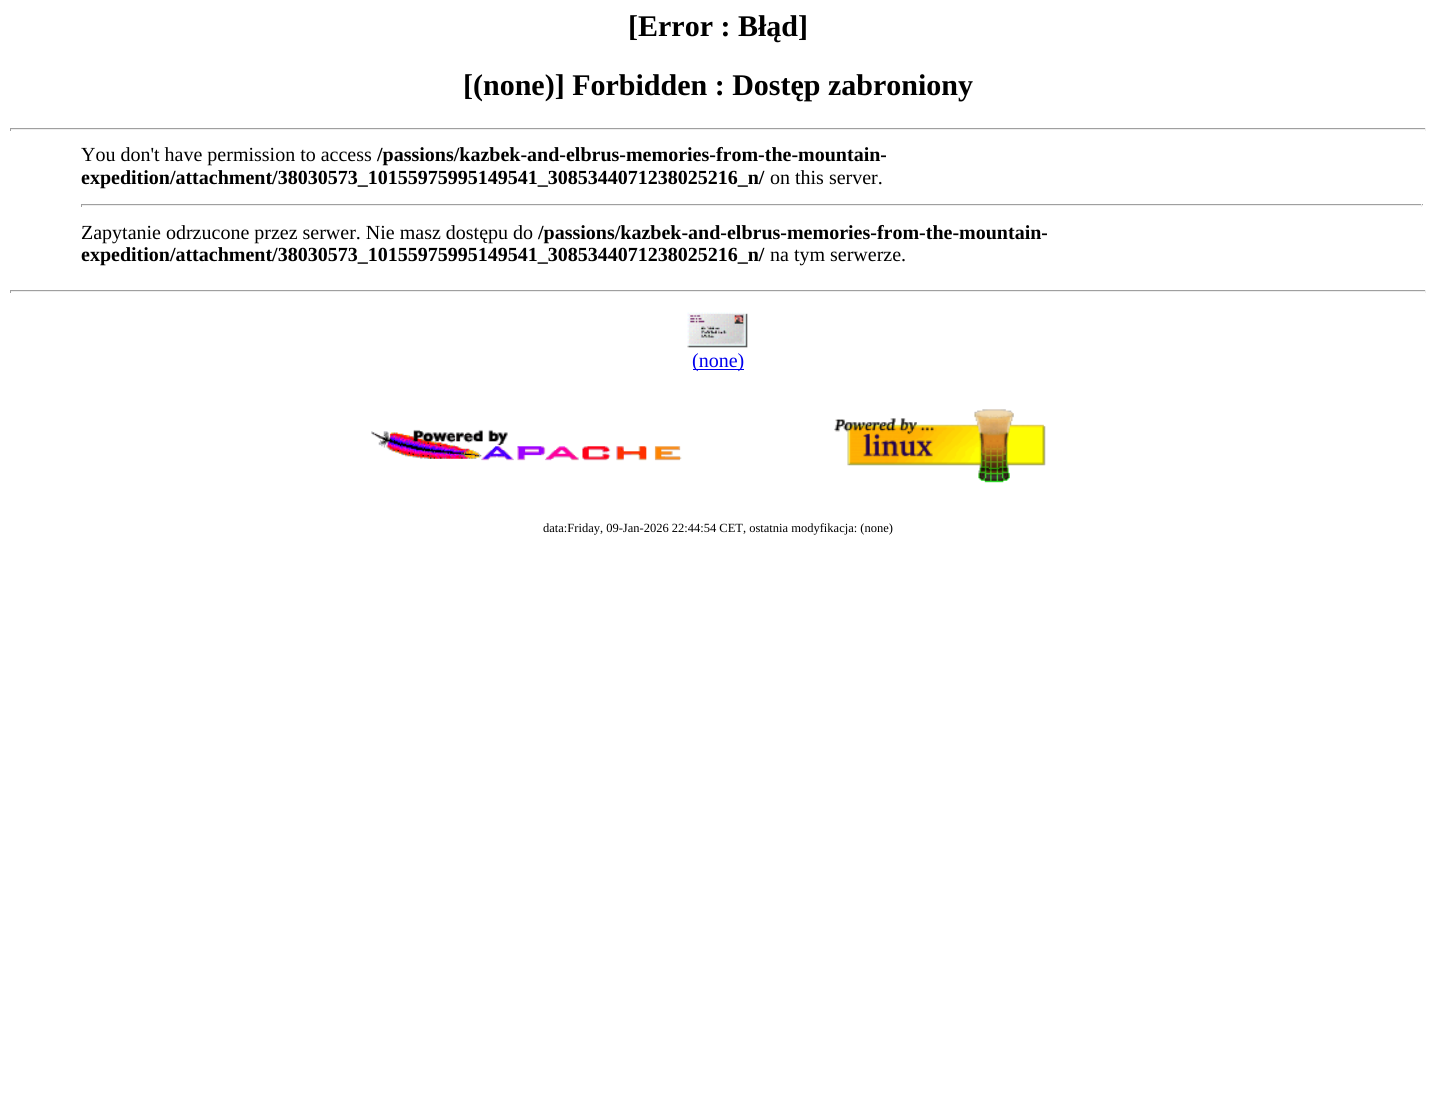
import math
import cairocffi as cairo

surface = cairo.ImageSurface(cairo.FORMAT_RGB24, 1436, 1111)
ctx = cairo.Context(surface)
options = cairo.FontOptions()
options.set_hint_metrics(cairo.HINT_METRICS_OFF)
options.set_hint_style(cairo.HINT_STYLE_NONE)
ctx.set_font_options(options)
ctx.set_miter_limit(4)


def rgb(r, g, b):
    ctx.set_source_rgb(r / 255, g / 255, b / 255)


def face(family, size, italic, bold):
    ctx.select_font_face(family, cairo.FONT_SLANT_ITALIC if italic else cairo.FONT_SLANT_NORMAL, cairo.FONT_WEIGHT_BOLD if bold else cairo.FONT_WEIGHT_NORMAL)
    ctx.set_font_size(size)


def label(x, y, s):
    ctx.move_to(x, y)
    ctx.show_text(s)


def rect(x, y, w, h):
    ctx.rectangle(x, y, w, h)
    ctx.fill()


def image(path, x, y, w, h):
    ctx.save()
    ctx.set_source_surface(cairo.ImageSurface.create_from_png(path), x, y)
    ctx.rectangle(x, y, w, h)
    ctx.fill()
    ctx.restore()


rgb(255, 255, 255)
ctx.paint()
face('Liberation Serif', 30, 0, 1)
rgb(0, 0, 0)
label(628, 36, '[Error : Błąd]')
label(463, 95, '[(none)] Forbidden : Dostęp zabroniony')
rgb(159, 159, 159)
rect(10, 128, 1416, 1)
rgb(238, 238, 238)
rect(1425, 128, 1, 3)
rect(10, 129, 1416, 1)
rgb(159, 159, 159)
rect(10, 128, 1, 3)
face('Liberation Serif', 20, 0, 0)
rgb(0, 0, 0)
label(81, 161, 'You don\'t have permission to access')
face('Liberation Serif', 20, 0, 1)
label(377, 161, '/passions/kazbek-and-elbrus-memories-from-the-mountain-')
label(81, 184, 'expedition/attachment/38030573_10155975995149541_3085344071238025216_n/')
face('Liberation Serif', 20, 0, 0)
label(770, 184, 'on this server.')
rgb(159, 159, 159)
rect(81, 204, 1342, 1)
rgb(238, 238, 238)
rect(1421, 204, 1, 3)
rect(81, 205, 1342, 1)
rgb(159, 159, 159)
rect(81, 204, 1, 3)
rgb(0, 0, 0)
label(81, 239, 'Zapytanie odrzucone przez serwer. Nie masz dostępu do')
face('Liberation Serif', 20, 0, 1)
label(538, 239, '/passions/kazbek-and-elbrus-memories-from-the-mountain-')
label(81, 261, 'expedition/attachment/38030573_10155975995149541_3085344071238025216_n/')
face('Liberation Serif', 20, 0, 0)
label(770, 261, 'na tym serwerze.')
rgb(159, 159, 159)
rect(10, 290, 1416, 1)
rgb(238, 238, 238)
rect(1425, 290, 1, 3)
rect(10, 291, 1416, 1)
rgb(159, 159, 159)
rect(10, 290, 1, 3)
image('image0.png', 687, 312, 61, 36)
rgb(0, 0, 238)
rect(693, 369, 51, 1)
label(692, 367, '(none)')
image('image1.png', 371, 429, 311, 32)
image('image2.png', 834, 409, 212, 74)
face('Liberation Serif', 12.5, 0, 0)
rgb(0, 0, 0)
label(543, 532, 'data:Friday, 09-Jan-2026 22:44:54 CET, ostatnia modyfikacja: (none)')
surface.write_to_png('render.png')
